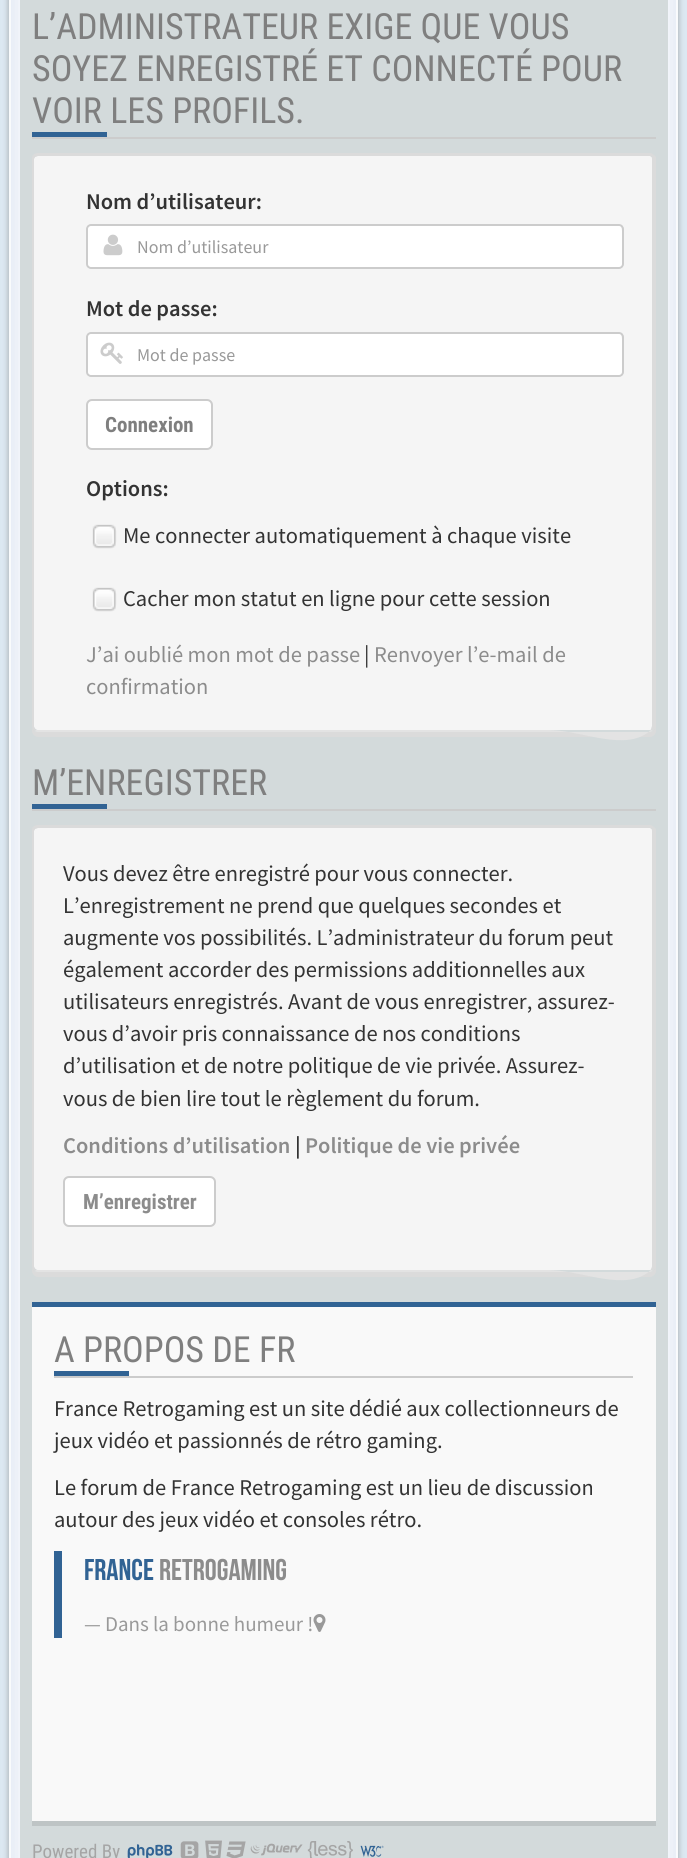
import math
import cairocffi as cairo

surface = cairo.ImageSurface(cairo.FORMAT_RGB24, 687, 1858)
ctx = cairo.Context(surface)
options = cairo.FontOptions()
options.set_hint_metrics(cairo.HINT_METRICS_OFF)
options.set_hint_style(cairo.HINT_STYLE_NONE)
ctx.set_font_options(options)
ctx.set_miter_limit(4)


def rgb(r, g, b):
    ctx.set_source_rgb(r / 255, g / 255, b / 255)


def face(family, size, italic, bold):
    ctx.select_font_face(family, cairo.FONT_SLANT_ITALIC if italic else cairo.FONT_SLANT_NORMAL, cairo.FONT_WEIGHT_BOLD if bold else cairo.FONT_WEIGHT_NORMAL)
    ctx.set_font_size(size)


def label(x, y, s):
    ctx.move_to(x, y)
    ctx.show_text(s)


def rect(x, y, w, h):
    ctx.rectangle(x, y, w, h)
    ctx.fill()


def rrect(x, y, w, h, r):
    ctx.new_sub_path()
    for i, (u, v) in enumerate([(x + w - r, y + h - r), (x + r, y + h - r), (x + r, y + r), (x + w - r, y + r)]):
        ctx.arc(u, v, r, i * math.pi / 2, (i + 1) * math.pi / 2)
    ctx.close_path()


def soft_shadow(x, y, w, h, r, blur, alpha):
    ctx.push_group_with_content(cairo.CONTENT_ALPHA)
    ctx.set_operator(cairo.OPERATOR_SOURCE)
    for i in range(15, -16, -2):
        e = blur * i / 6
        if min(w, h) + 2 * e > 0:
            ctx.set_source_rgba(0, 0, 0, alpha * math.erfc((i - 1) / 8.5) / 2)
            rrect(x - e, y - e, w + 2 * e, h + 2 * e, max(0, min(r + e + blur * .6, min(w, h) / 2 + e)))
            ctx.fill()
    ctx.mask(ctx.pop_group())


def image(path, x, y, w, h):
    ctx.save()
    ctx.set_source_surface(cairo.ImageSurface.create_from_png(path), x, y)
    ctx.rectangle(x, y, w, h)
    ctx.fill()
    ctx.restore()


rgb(218, 231, 241)
ctx.paint()
rgb(50, 50, 50)
soft_shadow(9, -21, 669, 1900, 12, 3, 0.5)
rgb(227, 233, 244)
ctx.rectangle(10, -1, 667, 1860)
ctx.fill_preserve()
rgb(248, 250, 252)
ctx.stroke()
rgb(255, 255, 255)
soft_shadow(20, -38, 648, 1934, 6, 10.5, 1)
rgb(211, 218, 219)
rect(20, 0, 648, 1858)
rgb(204, 204, 204)
rect(32, 137, 624, 2)
face('Roboto Condensed', 36, 0, 0)
rgb(127, 127, 127)
label(32, 39, 'L’ADMINISTRATEUR EXIGE QUE VOUS')
label(32, 81, 'SOYEZ ENREGISTRÉ ET CONNECTÉ POUR')
label(32, 123, 'VOIR LES PROFILS.')
rgb(49, 99, 148)
rect(32, 132, 75, 5)
rgb(219, 219, 219)
ctx.new_path()
ctx.move_to(32, 728)
ctx.line_to(32, 731)
ctx.curve_to(32, 734, 35, 737, 38, 737)
ctx.line_to(650, 737)
ctx.curve_to(653, 737, 656, 734, 656, 731)
ctx.line_to(656, 164)
ctx.line_to(656, 162)
ctx.line_to(656, 726)
ctx.curve_to(656, 729, 653, 732, 650, 732)
ctx.line_to(38, 732)
ctx.curve_to(35, 732, 33, 731, 32, 728)
ctx.close_path()
ctx.fill()
rgb(245, 245, 245)
ctx.new_path()
ctx.move_to(38, 156)
ctx.line_to(650, 156)
ctx.curve_to(651, 156, 652, 157, 652, 159)
ctx.line_to(652, 726)
ctx.curve_to(652, 728, 651, 730, 650, 730)
ctx.line_to(38, 730)
ctx.curve_to(36, 730, 34, 728, 34, 726)
ctx.line_to(34, 159)
ctx.curve_to(34, 157, 36, 156, 38, 156)
ctx.close_path()
ctx.fill()
rgb(219, 219, 219)
ctx.new_path()
ctx.move_to(38, 153)
ctx.curve_to(36, 153, 34, 154, 33, 155)
ctx.line_to(35, 157)
ctx.line_to(38, 156)
ctx.line_to(650, 156)
ctx.line_to(652, 157)
ctx.line_to(654, 155)
ctx.curve_to(653, 154, 651, 153, 650, 153)
ctx.close_path()
ctx.fill()
ctx.new_path()
ctx.move_to(656, 728)
ctx.line_to(653, 731)
ctx.line_to(651, 730)
ctx.line_to(652, 726)
ctx.line_to(652, 159)
ctx.line_to(652, 157)
ctx.line_to(654, 155)
ctx.line_to(656, 157)
ctx.close_path()
ctx.fill()
rgb(227, 227, 227)
ctx.new_path()
ctx.move_to(38, 732)
ctx.line_to(650, 732)
ctx.line_to(653, 731)
ctx.line_to(651, 730)
ctx.curve_to(626, 753, 582, 730, 548, 730)
ctx.line_to(38, 730)
ctx.line_to(36, 730)
ctx.line_to(34, 731)
ctx.curve_to(35, 731, 36, 732, 38, 732)
ctx.close_path()
ctx.fill()
rgb(219, 219, 219)
ctx.new_path()
ctx.move_to(33, 155)
ctx.curve_to(32, 156, 32, 158, 32, 159)
ctx.line_to(32, 726)
ctx.curve_to(32, 728, 33, 730, 34, 731)
ctx.line_to(36, 730)
ctx.curve_to(35, 729, 34, 728, 34, 726)
ctx.line_to(34, 159)
ctx.line_to(35, 157)
ctx.close_path()
ctx.fill()
face('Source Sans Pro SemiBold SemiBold', 22.5, 0, 0)
rgb(51, 51, 51)
label(86, 209, 'Nom d’utilisateur:')
rgb(255, 255, 255)
rrect(86, 224, 538, 45, 5)
ctx.fill()
rgb(236, 236, 236)
ctx.new_path()
ctx.move_to(90, 226)
ctx.line_to(620, 226)
ctx.curve_to(623, 226, 622, 241, 622, 242)
ctx.line_to(622, 266)
ctx.curve_to(623, 266, 623, 265, 623, 264)
ctx.line_to(623, 228)
ctx.curve_to(623, 226, 622, 225, 620, 225)
ctx.line_to(90, 225)
ctx.curve_to(88, 225, 87, 226, 87, 228)
ctx.line_to(87, 230)
ctx.curve_to(87, 228, 88, 226, 90, 226)
ctx.close_path()
ctx.fill()
rrect(87, 225, 536, 43, 4)
rgb(204, 204, 204)
ctx.stroke()
image('image0.png', 103, 234, 20, 22)
face('Source Sans Pro', 18, 0, 0)
rgb(153, 153, 153)
label(137, 253, 'Nom d’utilisateur')
face('Source Sans Pro SemiBold SemiBold', 22.5, 0, 0)
rgb(51, 51, 51)
label(86, 316, 'Mot de passe:')
rgb(255, 255, 255)
rrect(86, 332, 538, 45, 5)
ctx.fill()
rgb(236, 236, 236)
ctx.new_path()
ctx.move_to(90, 334)
ctx.line_to(620, 334)
ctx.curve_to(623, 334, 622, 349, 622, 350)
ctx.line_to(622, 374)
ctx.curve_to(623, 374, 623, 373, 623, 372)
ctx.line_to(623, 336)
ctx.curve_to(623, 334, 622, 333, 620, 333)
ctx.line_to(90, 333)
ctx.curve_to(88, 333, 87, 334, 87, 336)
ctx.line_to(87, 338)
ctx.curve_to(87, 336, 88, 334, 90, 334)
ctx.close_path()
ctx.fill()
rrect(87, 333, 536, 43, 4)
rgb(204, 204, 204)
ctx.stroke()
image('image1.png', 100, 342, 23, 22)
face('Source Sans Pro', 18, 0, 0)
rgb(153, 153, 153)
label(137, 361, 'Mot de passe')
rgb(255, 255, 255)
rrect(87, 400, 125, 49, 5)
ctx.fill_preserve()
rgb(204, 204, 204)
ctx.stroke()
face('Roboto Condensed', 21, 0, 1)
rgb(127, 127, 127)
label(105, 432, 'Connexion')
face('Source Sans Pro SemiBold SemiBold', 22.5, 0, 0)
rgb(51, 51, 51)
label(86, 496, 'Options:')
image('image2.png', 92, 524, 25, 25)
face('Source Sans Pro', 22.5, 0, 0)
label(123, 543, 'Me connecter automatiquement à chaque visite')
image('image2.png', 92, 587, 25, 25)
label(123, 606, 'Cacher mon statut en ligne pour cette session')
rgb(140, 140, 140)
label(86, 662, 'J’ai oublié mon mot de passe')
rgb(51, 51, 51)
label(364, 662, '|')
rgb(140, 140, 140)
label(374, 662, 'Renvoyer l’e-mail de')
label(86, 694, 'confirmation')
rgb(204, 204, 204)
rect(32, 809, 624, 2)
face('Roboto Condensed', 36, 0, 0)
rgb(127, 127, 127)
label(32, 795, 'M’ENREGISTRER')
rgb(49, 99, 148)
rect(32, 804, 75, 5)
rgb(219, 219, 219)
ctx.new_path()
ctx.move_to(32, 1268)
ctx.line_to(32, 1271)
ctx.curve_to(32, 1274, 35, 1277, 38, 1277)
ctx.line_to(650, 1277)
ctx.curve_to(653, 1277, 656, 1274, 656, 1271)
ctx.line_to(656, 836)
ctx.line_to(656, 834)
ctx.line_to(656, 1266)
ctx.curve_to(656, 1269, 653, 1272, 650, 1272)
ctx.line_to(38, 1272)
ctx.curve_to(35, 1272, 33, 1271, 32, 1268)
ctx.close_path()
ctx.fill()
rgb(245, 245, 245)
ctx.new_path()
ctx.move_to(38, 828)
ctx.line_to(650, 828)
ctx.curve_to(651, 828, 652, 829, 652, 831)
ctx.line_to(652, 1266)
ctx.curve_to(652, 1268, 651, 1270, 650, 1270)
ctx.line_to(38, 1270)
ctx.curve_to(36, 1270, 34, 1268, 34, 1266)
ctx.line_to(34, 831)
ctx.curve_to(34, 829, 36, 828, 38, 828)
ctx.close_path()
ctx.fill()
rgb(219, 219, 219)
ctx.new_path()
ctx.move_to(38, 825)
ctx.curve_to(36, 825, 34, 826, 33, 827)
ctx.line_to(35, 829)
ctx.line_to(38, 828)
ctx.line_to(650, 828)
ctx.line_to(652, 829)
ctx.line_to(654, 827)
ctx.curve_to(653, 826, 651, 825, 650, 825)
ctx.close_path()
ctx.fill()
ctx.new_path()
ctx.move_to(656, 1268)
ctx.line_to(653, 1271)
ctx.line_to(651, 1270)
ctx.line_to(652, 1267)
ctx.line_to(652, 831)
ctx.line_to(652, 829)
ctx.line_to(654, 827)
ctx.line_to(656, 829)
ctx.close_path()
ctx.fill()
rgb(227, 227, 227)
ctx.new_path()
ctx.move_to(38, 1272)
ctx.line_to(650, 1272)
ctx.line_to(653, 1271)
ctx.line_to(651, 1270)
ctx.curve_to(626, 1293, 582, 1270, 548, 1270)
ctx.line_to(38, 1270)
ctx.line_to(36, 1270)
ctx.line_to(34, 1271)
ctx.curve_to(35, 1271, 36, 1272, 38, 1272)
ctx.close_path()
ctx.fill()
rgb(219, 219, 219)
ctx.new_path()
ctx.move_to(33, 827)
ctx.curve_to(32, 828, 32, 830, 32, 831)
ctx.line_to(32, 1266)
ctx.curve_to(32, 1268, 33, 1270, 34, 1271)
ctx.line_to(36, 1270)
ctx.curve_to(35, 1269, 34, 1268, 34, 1266)
ctx.line_to(34, 831)
ctx.line_to(35, 829)
ctx.close_path()
ctx.fill()
face('Source Sans Pro', 22.5, 0, 0)
rgb(51, 51, 51)
label(63, 881, 'Vous devez être enregistré pour vous connecter.')
label(63, 913, 'L’enregistrement ne prend que quelques secondes et')
label(63, 945, 'augmente vos possibilités. L’administrateur du forum peut')
label(63, 977, 'également accorder des permissions additionnelles aux')
label(63, 1009, 'utilisateurs enregistrés. Avant de vous enregistrer, assurez-')
label(63, 1041, 'vous d’avoir pris connaissance de nos conditions')
label(63, 1073, 'd’utilisation et de notre politique de vie privée. Assurez-')
label(63, 1106, 'vous de bien lire tout le règlement du forum.')
face('Source Sans Pro SemiBold SemiBold', 22.5, 0, 0)
rgb(140, 140, 140)
label(63, 1153, 'Conditions d’utilisation')
rgb(51, 51, 51)
label(295, 1153, '|')
rgb(140, 140, 140)
label(305, 1153, 'Politique de vie privée')
rgb(255, 255, 255)
rrect(64, 1177, 151, 49, 5)
ctx.fill_preserve()
rgb(204, 204, 204)
ctx.stroke()
face('Roboto Condensed', 21, 0, 1)
rgb(140, 140, 140)
label(83, 1209, 'M’enregistrer')
rgb(49, 99, 148)
rect(32, 1302, 624, 5)
rgb(190, 196, 197)
ctx.new_path()
ctx.move_to(32, 1821)
ctx.line_to(32, 1826)
ctx.line_to(656, 1826)
ctx.line_to(656, 1311)
ctx.line_to(656, 1821)
ctx.close_path()
ctx.fill()
rgb(249, 249, 249)
rect(32, 1307, 624, 514)
rgb(204, 204, 204)
rect(54, 1376, 579, 2)
face('Roboto Condensed', 36, 0, 0)
rgb(127, 127, 127)
label(54, 1362, 'A PROPOS DE FR')
rgb(49, 99, 148)
rect(54, 1371, 75, 5)
face('Source Sans Pro', 22.5, 0, 0)
rgb(51, 51, 51)
label(54, 1416, 'France Retrogaming est un site dédié aux collectionneurs de')
label(54, 1448, 'jeux vidéo et passionnés de rétro gaming.')
label(54, 1495, 'Le forum de France Retrogaming est un lieu de discussion')
label(54, 1527, 'autour des jeux vidéo et consoles rétro.')
rgb(49, 99, 148)
rect(54, 1551, 8, 87)
face('Bebas Neue', 30, 0, 0)
label(84, 1580, 'FRANCE')
rgb(140, 140, 140)
label(159, 1580, 'RETROGAMING')
face('Source Sans Pro', 21, 0, 0)
rgb(153, 153, 153)
label(84, 1631, '— Dans la bonne humeur !')
image('image3.png', 313, 1614, 13, 18)
face('Roboto Condensed', 19, 0, 0)
rgb(165, 165, 165)
label(32, 1858, 'Powered By')
image('image4.png', 127, 1844, 46, 14)
image('image5.png', 180, 1841, 19, 17)
image('image6.png', 205, 1840, 17, 18)
image('image7.png', 226, 1841, 20, 17)
image('image8.png', 250, 1843, 53, 13)
image('image9.png', 307, 1841, 46, 17)
image('image10.png', 360, 1845, 24, 12)
surface.write_to_png('render.png')
